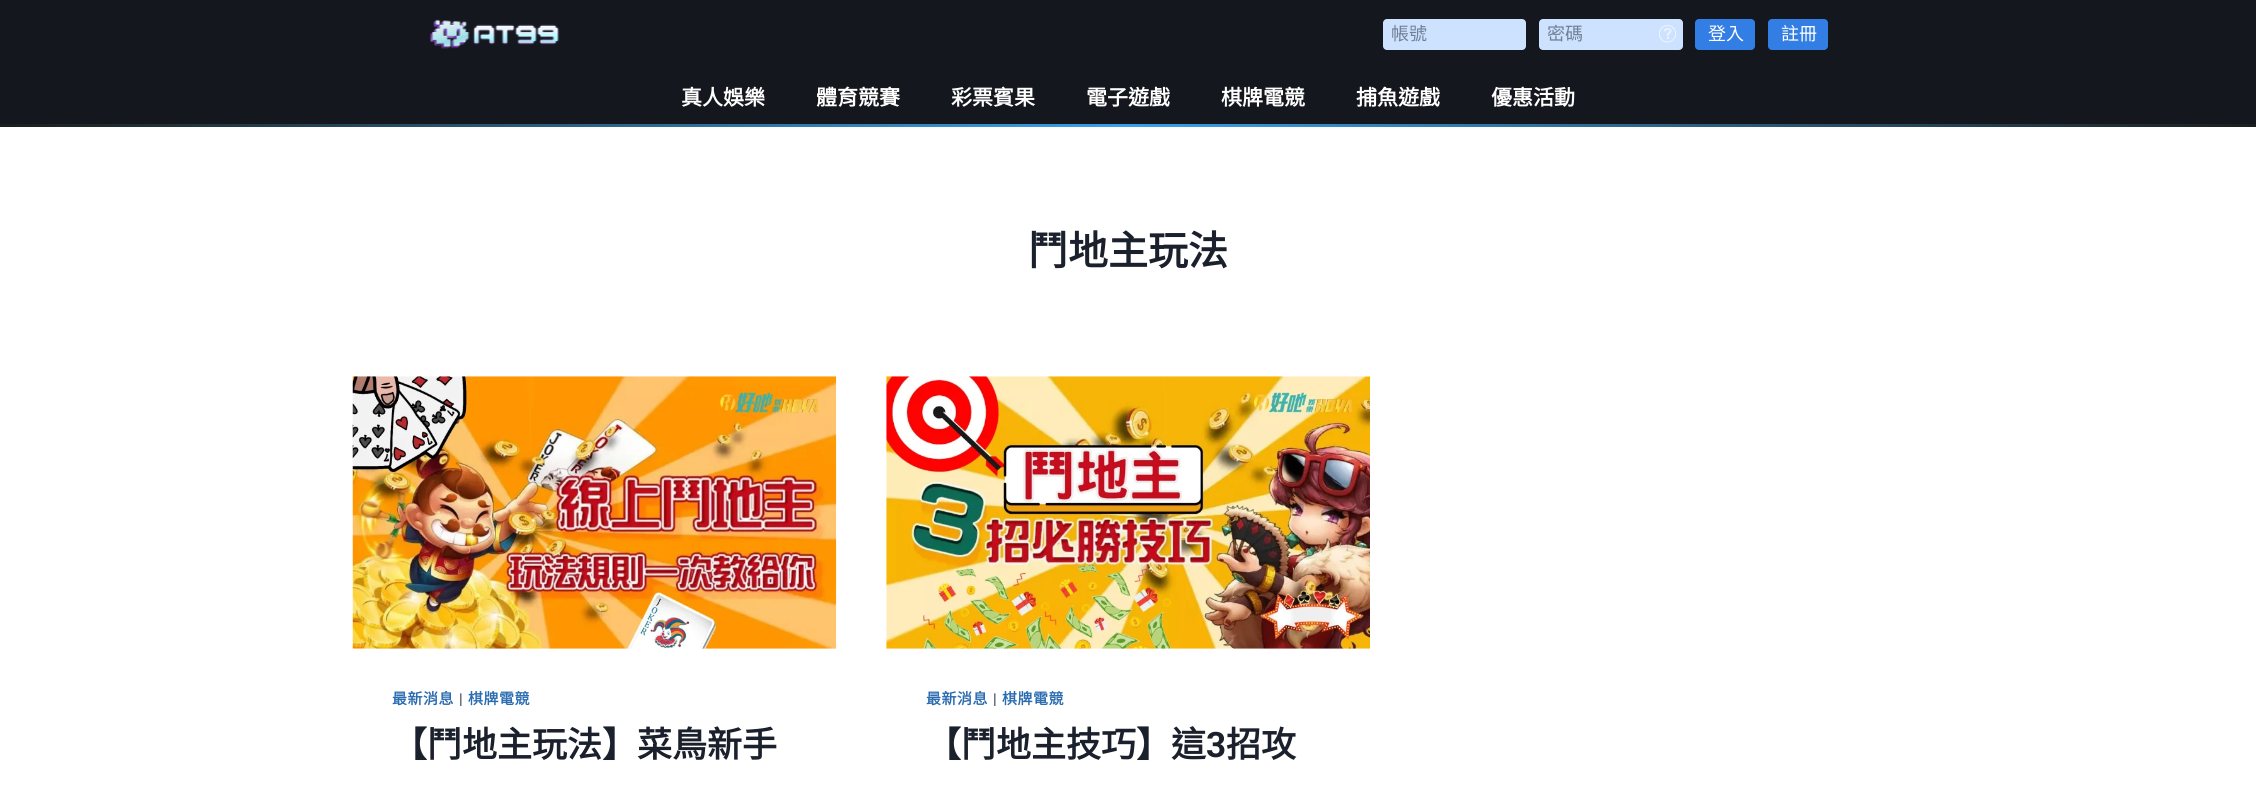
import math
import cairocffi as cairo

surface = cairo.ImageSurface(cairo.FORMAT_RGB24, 2256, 798)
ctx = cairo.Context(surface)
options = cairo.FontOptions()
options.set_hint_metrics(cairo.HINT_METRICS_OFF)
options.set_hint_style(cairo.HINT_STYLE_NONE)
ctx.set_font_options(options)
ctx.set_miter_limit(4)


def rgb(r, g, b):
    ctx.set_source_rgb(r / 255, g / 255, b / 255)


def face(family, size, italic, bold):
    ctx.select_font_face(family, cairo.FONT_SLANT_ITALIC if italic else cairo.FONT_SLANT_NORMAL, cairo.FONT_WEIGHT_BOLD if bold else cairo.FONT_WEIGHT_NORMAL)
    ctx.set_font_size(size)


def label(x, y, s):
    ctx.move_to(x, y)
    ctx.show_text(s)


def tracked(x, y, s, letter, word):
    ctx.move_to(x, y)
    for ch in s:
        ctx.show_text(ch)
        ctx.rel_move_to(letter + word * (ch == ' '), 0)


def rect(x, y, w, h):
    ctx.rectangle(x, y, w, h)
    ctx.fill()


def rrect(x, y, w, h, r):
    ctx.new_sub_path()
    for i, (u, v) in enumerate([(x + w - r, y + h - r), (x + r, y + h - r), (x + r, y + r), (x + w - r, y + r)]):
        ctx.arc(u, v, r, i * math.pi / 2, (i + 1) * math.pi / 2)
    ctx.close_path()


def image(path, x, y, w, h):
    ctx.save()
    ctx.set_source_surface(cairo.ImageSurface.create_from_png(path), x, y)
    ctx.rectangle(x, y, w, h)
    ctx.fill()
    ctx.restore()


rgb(255, 255, 255)
ctx.paint()
rgb(20, 23, 29)
rect(0, 0, 2256, 126)
image('image0.png', 429, 19, 131, 30)
rgb(204, 226, 255)
rrect(1383, 19, 143, 31, 4)
ctx.fill()
face('Noto Sans CJK TC', 18, 0, 0)
rgb(113, 128, 150)
label(1391, 40, '帳號')
rgb(204, 226, 255)
rrect(1539, 19, 144, 31, 4)
ctx.fill()
rgb(113, 128, 150)
label(1547, 40, '密碼')
image('image1.png', 1659, 25, 17, 18)
rgb(50, 126, 229)
rrect(1695, 19, 60, 31, 4)
ctx.fill()
rgb(255, 255, 255)
label(1708, 40, '登入')
rgb(50, 126, 229)
rrect(1768, 19, 60, 31, 4)
ctx.fill()
rgb(255, 255, 255)
label(1781, 40, '註冊')
face('Noto Sans CJK TC', 21, 0, 1)
label(681, 105, '真人娛樂')
label(816, 105, '體育競賽')
label(951, 105, '彩票賓果')
label(1086, 105, '電子遊戲')
label(1221, 105, '棋牌電競')
label(1356, 105, '捕魚遊戲')
label(1491, 105, '優惠活動')
gradient = cairo.LinearGradient(0, 125, 2256, 125)
gradient.add_color_stop_rgba(0, 0.106, 0.118, 0.102, 1)
gradient.add_color_stop_rgba(0.5, 0.227, 0.635, 0.925, 0.98)
gradient.add_color_stop_rgba(1, 0.11, 0.118, 0.11, 1)
ctx.set_source(gradient)
rect(0, 124, 2256, 3)
face('Noto Sans CJK TC', 40, 0, 1)
rgb(26, 32, 44)
label(1028, 265, '鬥地主玩法')
image('image2.png', 352, 376, 485, 273)
face('Noto Sans CJK TC', 15, 0, 1)
rgb(43, 108, 176)
tracked(392, 704, '最新消息', 0.5, 0)
face('Roboto', 15, 0, 0)
rgb(45, 55, 72)
tracked(459, 704, '|', 0.5, 0)
face('Noto Sans CJK TC', 15, 0, 1)
rgb(43, 108, 176)
tracked(468, 704, '棋牌電競', 0.5, 0)
face('Noto Sans CJK TC', 35, 0, 1)
rgb(26, 32, 44)
label(392, 757, '【鬥地主玩法】菜鳥新手')
image('image3.png', 886, 376, 484, 273)
face('Noto Sans CJK TC', 15, 0, 1)
rgb(43, 108, 176)
tracked(926, 704, '最新消息', 0.5, 0)
face('Roboto', 15, 0, 0)
rgb(45, 55, 72)
tracked(993, 704, '|', 0.5, 0)
face('Noto Sans CJK TC', 15, 0, 1)
rgb(43, 108, 176)
tracked(1002, 704, '棋牌電競', 0.5, 0)
face('Noto Sans CJK TC', 35, 0, 1)
rgb(26, 32, 44)
label(926, 757, '【鬥地主技巧】這')
face('Roboto', 35, 0, 1)
label(1206, 757, '3')
face('Noto Sans CJK TC', 35, 0, 1)
label(1226, 757, '招攻')
surface.write_to_png('render.png')
